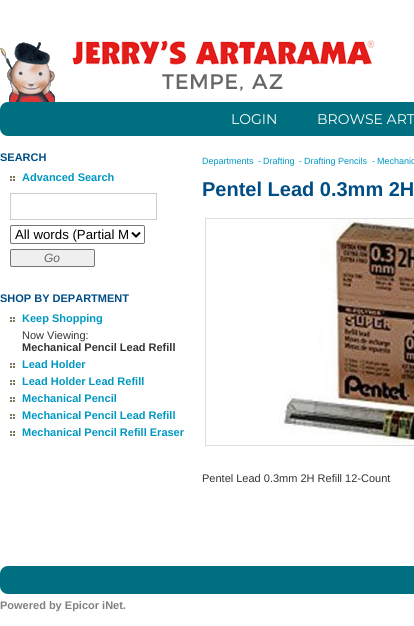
import math
import cairocffi as cairo

surface = cairo.ImageSurface(cairo.FORMAT_RGB24, 414, 626)
ctx = cairo.Context(surface)
options = cairo.FontOptions()
options.set_hint_metrics(cairo.HINT_METRICS_OFF)
options.set_hint_style(cairo.HINT_STYLE_NONE)
ctx.set_font_options(options)
ctx.set_miter_limit(4)


def rgb(r, g, b):
    ctx.set_source_rgb(r / 255, g / 255, b / 255)


def face(family, size, italic, bold):
    ctx.select_font_face(family, cairo.FONT_SLANT_ITALIC if italic else cairo.FONT_SLANT_NORMAL, cairo.FONT_WEIGHT_BOLD if bold else cairo.FONT_WEIGHT_NORMAL)
    ctx.set_font_size(size)


def label(x, y, s):
    ctx.move_to(x, y)
    ctx.show_text(s)


def rrect(x, y, w, h, r):
    ctx.new_sub_path()
    for i, (u, v) in enumerate([(x + w - r, y + h - r), (x + r, y + h - r), (x + r, y + r), (x + w - r, y + r)]):
        ctx.arc(u, v, r, i * math.pi / 2, (i + 1) * math.pi / 2)
    ctx.close_path()


def image(path, x, y, w, h):
    ctx.save()
    ctx.set_source_surface(cairo.ImageSurface.create_from_png(path), x, y)
    ctx.rectangle(x, y, w, h)
    ctx.fill()
    ctx.restore()


rgb(255, 255, 255)
ctx.paint()
image('image0.png', 0, 40, 375, 62)
rgb(0, 112, 128)
rrect(0, 102, 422, 34, 8)
ctx.fill()
face('Montserrat', 14, 0, 0)
rgb(255, 255, 255)
label(231, 124, 'LOGIN')
label(317, 124, 'BROWSE ART')
face('Liberation Sans', 11, 0, 1)
rgb(0, 77, 133)
label(0, 161, 'SEARCH')
image('image1.png', 10, 176, 5, 5)
rgb(0, 152, 194)
label(22, 181, 'Advanced Search')
ctx.rectangle(10.5, 193.5, 146, 26)
rgb(204, 204, 204)
ctx.set_line_width(1)
ctx.stroke()
rrect(10.5, 225.5, 134, 18, 1.5)
rgb(118, 118, 118)
ctx.stroke()
ctx.new_path()
ctx.move_to(132, 232.5)
ctx.line_to(136, 236.5)
ctx.line_to(140, 232.5)
rgb(0, 0, 0)
ctx.set_line_width(2)
ctx.stroke()
ctx.save()
ctx.rectangle(15, 226, 113, 17)
ctx.clip()
face('Liberation Sans', 13.25, 0, 0)
label(15, 239, 'All words (Partial M')
ctx.restore()
rgb(239, 239, 239)
rrect(10.5, 249.5, 84, 17, 1.5)
ctx.fill_preserve()
rgb(118, 118, 118)
ctx.set_line_width(1)
ctx.stroke()
face('Liberation Sans', 12, 1, 0)
rgb(102, 102, 102)
label(44, 262, 'Go')
face('Liberation Sans', 11, 0, 1)
rgb(0, 77, 133)
label(0, 302, 'SHOP BY DEPARTMENT')
image('image1.png', 10, 317, 5, 5)
rgb(0, 152, 194)
label(22, 322, 'Keep Shopping')
face('Liberation Sans', 11, 0, 0)
rgb(51, 51, 51)
label(22, 339, 'Now Viewing:')
face('Liberation Sans', 11, 0, 1)
label(22, 351, 'Mechanical Pencil Lead Refill')
image('image1.png', 10, 363, 5, 5)
rgb(0, 152, 194)
label(22, 368, 'Lead Holder')
image('image1.png', 10, 380, 5, 5)
label(22, 385, 'Lead Holder Lead Refill')
image('image1.png', 10, 397, 5, 5)
label(22, 402, 'Mechanical Pencil')
image('image1.png', 10, 414, 5, 5)
label(22, 419, 'Mechanical Pencil Lead Refill')
image('image1.png', 10, 431, 5, 5)
label(22, 436, 'Mechanical Pencil Refill Eraser')
face('Liberation Sans', 9, 0, 0)
label(202, 164, 'Departments')
label(258, 164, '-')
label(263, 164, 'Drafting')
label(299, 164, '-')
label(304, 164, 'Drafting Pencils')
label(372, 164, '-')
label(377, 164, 'Mechanic')
face('Liberation Sans', 20, 0, 1)
rgb(0, 77, 133)
label(202, 196, 'Pentel Lead 0.3mm 2H')
ctx.rectangle(205.5, 218.5, 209, 227)
rgb(221, 221, 221)
ctx.stroke()
image('image2.png', 279, 219, 135, 226)
face('Liberation Sans', 11, 0, 0)
rgb(51, 51, 51)
label(202, 482, 'Pentel Lead 0.3mm 2H Refill 12-Count')
rgb(0, 112, 128)
rrect(0, 566, 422, 28, 8)
ctx.fill()
face('Liberation Sans', 11, 0, 1)
rgb(128, 128, 128)
label(0, 609, 'Powered by Epicor iNet.')
surface.write_to_png('render.png')
